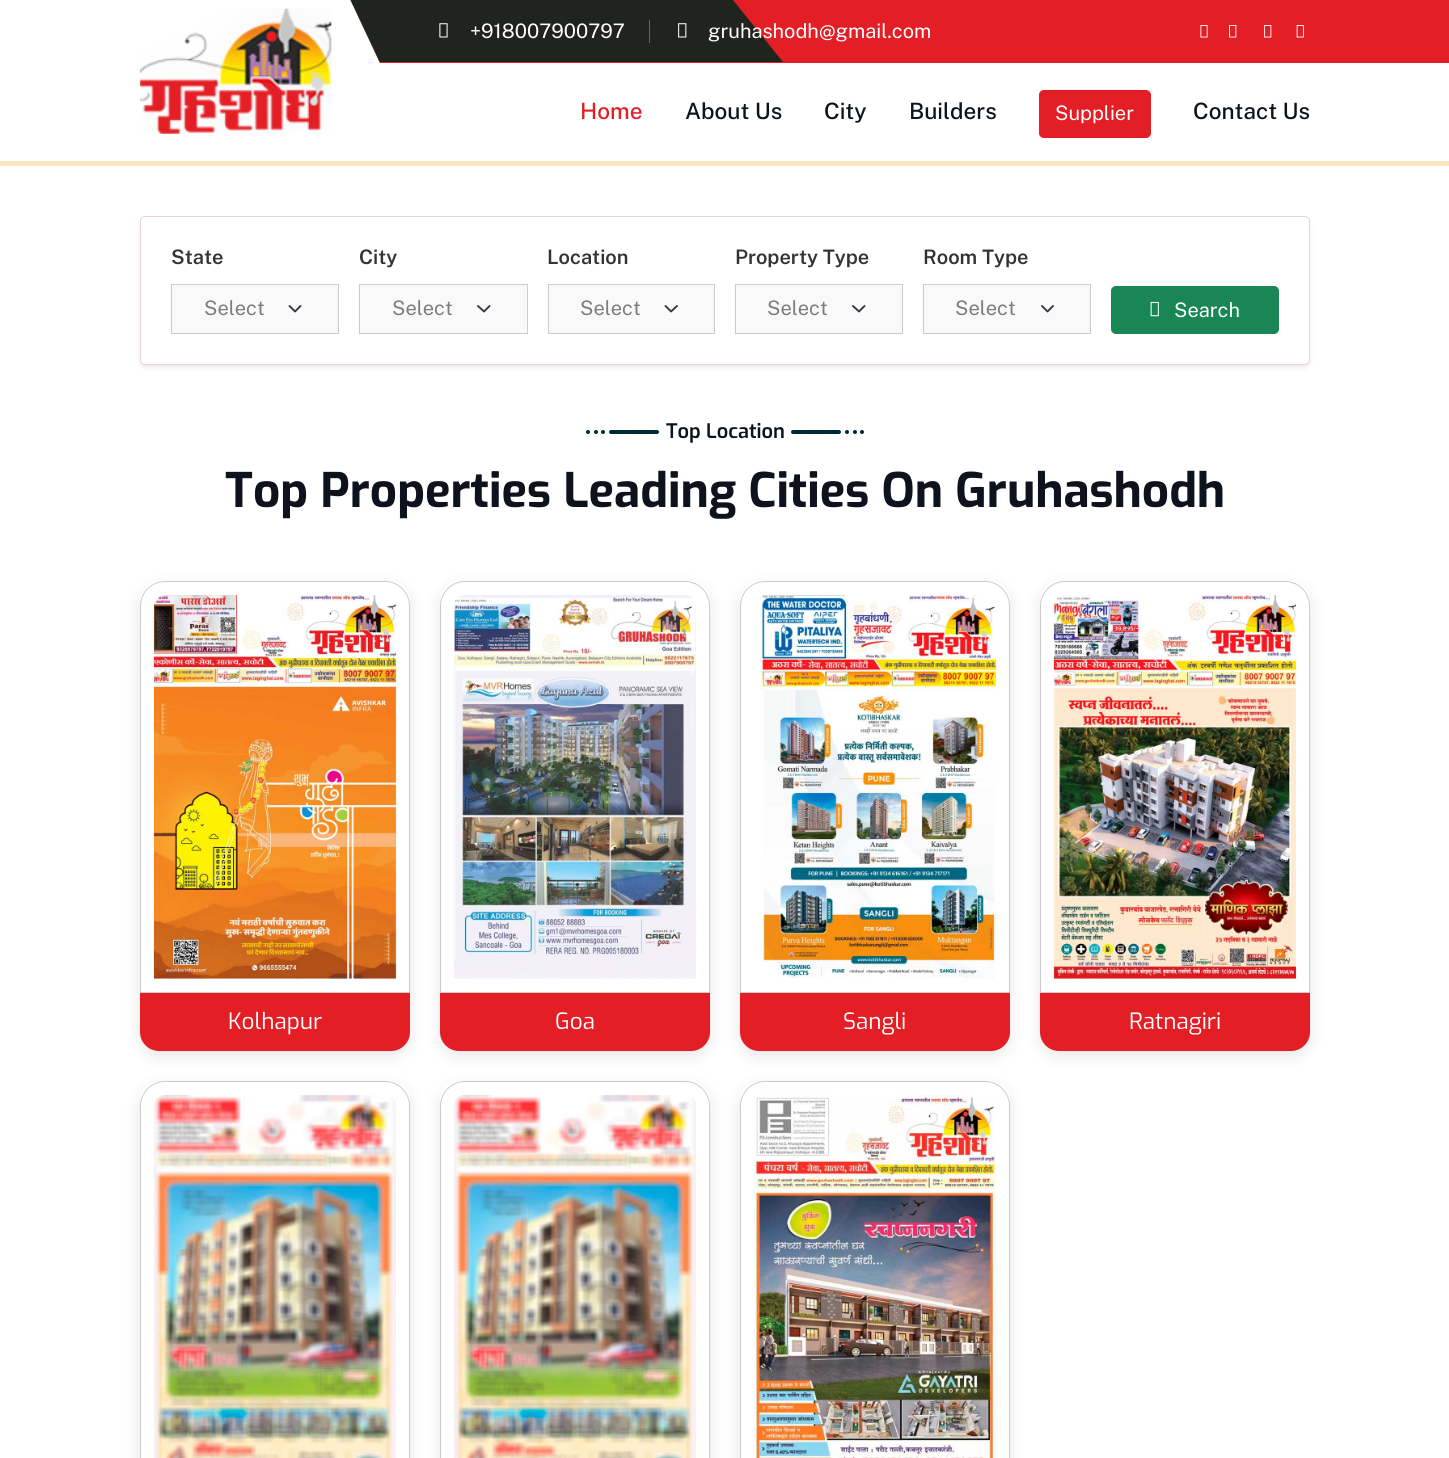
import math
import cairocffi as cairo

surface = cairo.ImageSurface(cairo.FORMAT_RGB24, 1449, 1458)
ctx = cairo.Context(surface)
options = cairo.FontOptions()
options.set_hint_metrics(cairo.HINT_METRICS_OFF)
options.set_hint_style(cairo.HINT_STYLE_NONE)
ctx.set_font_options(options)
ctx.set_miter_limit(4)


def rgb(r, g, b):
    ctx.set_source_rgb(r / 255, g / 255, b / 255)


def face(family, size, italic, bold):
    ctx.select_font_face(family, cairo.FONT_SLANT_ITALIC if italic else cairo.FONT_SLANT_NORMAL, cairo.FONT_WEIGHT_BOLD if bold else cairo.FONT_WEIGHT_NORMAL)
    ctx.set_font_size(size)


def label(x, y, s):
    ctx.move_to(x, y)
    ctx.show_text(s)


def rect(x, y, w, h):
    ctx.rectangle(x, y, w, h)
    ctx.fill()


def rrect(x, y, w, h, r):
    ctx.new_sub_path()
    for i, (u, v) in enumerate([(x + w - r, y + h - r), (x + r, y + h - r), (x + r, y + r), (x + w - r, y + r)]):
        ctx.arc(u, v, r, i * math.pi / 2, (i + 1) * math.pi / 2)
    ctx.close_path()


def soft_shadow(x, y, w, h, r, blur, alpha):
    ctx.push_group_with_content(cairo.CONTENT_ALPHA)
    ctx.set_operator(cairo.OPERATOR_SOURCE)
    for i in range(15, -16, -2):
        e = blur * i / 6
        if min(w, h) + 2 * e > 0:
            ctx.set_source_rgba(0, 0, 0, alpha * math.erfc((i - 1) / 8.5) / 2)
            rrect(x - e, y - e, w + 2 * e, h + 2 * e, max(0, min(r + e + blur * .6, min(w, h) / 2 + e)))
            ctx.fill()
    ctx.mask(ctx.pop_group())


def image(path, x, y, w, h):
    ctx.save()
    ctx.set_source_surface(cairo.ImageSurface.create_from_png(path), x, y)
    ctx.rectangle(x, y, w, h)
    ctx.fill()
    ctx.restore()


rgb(255, 255, 255)
ctx.paint()
rgb(227, 30, 36)
rect(379, 0, 1070, 63)
rgb(33, 36, 30)
ctx.new_path()
ctx.move_to(0, 0)
ctx.line_to(0, 62)
ctx.line_to(783, 62)
ctx.line_to(733, 0)
ctx.close_path()
ctx.fill()
image('image0.png', 439, 23, 9, 15)
face('Public Sans', 20, 0, 0)
rgb(255, 255, 255)
label(470, 38, '+918007900797')
rgb(100, 102, 98)
rect(649, 20, 1, 23)
image('image1.png', 678, 23, 9, 15)
rgb(255, 255, 255)
label(708, 38, 'gruhashodh@gmail.com')
image('image2.png', 1200, 25, 8, 13)
image('image3.png', 1229, 25, 8, 13)
image('image3.png', 1264, 25, 8, 13)
image('image4.png', 1296, 25, 8, 13)
ctx.new_path()
ctx.move_to(-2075, -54)
ctx.line_to(-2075, 159)
ctx.line_to(425, 159)
ctx.line_to(325, -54)
ctx.close_path()
ctx.fill()
image('image5.png', 140, 8, 192, 126)
face('Public Sans Medium', 22.5, 0, 0)
rgb(227, 30, 36)
label(580, 119, 'Home')
rgb(14, 18, 29)
label(685, 119, 'About Us')
label(824, 119, 'City')
label(909, 119, 'Builders')
rgb(227, 30, 36)
rrect(1039.5, 90.5, 111, 47, 4.5)
ctx.fill_preserve()
ctx.set_line_width(1)
ctx.stroke()
face('Public Sans', 20, 0, 0)
rgb(255, 255, 255)
label(1055, 120, 'Supplier')
face('Public Sans Medium', 22.5, 0, 0)
rgb(14, 18, 29)
label(1193, 119, 'Contact Us')
rgb(253, 229, 196)
rect(0, 161, 1449, 5)
rgb(0, 0, 0)
soft_shadow(140, 219, 1170, 149, 5, 2.5, 0.07)
rgb(255, 255, 255)
rrect(140.5, 216.5, 1169, 148, 4.5)
ctx.fill_preserve()
rgb(238, 209, 209)
ctx.stroke()
face('Public Sans SemiBold', 20, 0, 0)
rgb(51, 51, 51)
label(171, 264, 'State')
rgb(249, 249, 249)
rect(172, 285, 166, 48)
ctx.new_path()
ctx.move_to(289.5, 306)
ctx.line_to(295, 311.5)
ctx.line_to(300.5, 306)
rgb(52, 58, 64)
ctx.set_line_width(1.9)
ctx.set_line_cap(cairo.LINE_CAP_ROUND)
ctx.set_line_join(cairo.LINE_JOIN_ROUND)
ctx.stroke()
ctx.rectangle(171.5, 284.5, 167, 49)
rgb(204, 204, 204)
ctx.set_line_width(1)
ctx.set_line_cap(cairo.LINE_CAP_BUTT)
ctx.set_line_join(cairo.LINE_JOIN_MITER)
ctx.stroke()
face('Public Sans', 20, 0, 0)
rgb(124, 124, 124)
label(204, 315, 'Select')
face('Public Sans SemiBold', 20, 0, 0)
rgb(51, 51, 51)
label(359, 264, 'City')
rgb(249, 249, 249)
rect(360, 285, 167, 48)
ctx.new_path()
ctx.move_to(478, 306)
ctx.line_to(484, 311.5)
ctx.line_to(489.5, 306)
rgb(52, 58, 64)
ctx.set_line_width(1.9)
ctx.set_line_cap(cairo.LINE_CAP_ROUND)
ctx.set_line_join(cairo.LINE_JOIN_ROUND)
ctx.stroke()
ctx.rectangle(359.5, 284.5, 168, 49)
rgb(204, 204, 204)
ctx.set_line_width(1)
ctx.set_line_cap(cairo.LINE_CAP_BUTT)
ctx.set_line_join(cairo.LINE_JOIN_MITER)
ctx.stroke()
face('Public Sans', 20, 0, 0)
rgb(124, 124, 124)
label(392, 315, 'Select')
face('Public Sans SemiBold', 20, 0, 0)
rgb(51, 51, 51)
label(547, 264, 'Location')
rgb(249, 249, 249)
rect(549, 285, 165, 48)
ctx.new_path()
ctx.move_to(665.5, 306)
ctx.line_to(671, 311.5)
ctx.line_to(677, 306)
rgb(52, 58, 64)
ctx.set_line_width(1.9)
ctx.set_line_cap(cairo.LINE_CAP_ROUND)
ctx.set_line_join(cairo.LINE_JOIN_ROUND)
ctx.stroke()
ctx.rectangle(548.5, 284.5, 166, 49)
rgb(204, 204, 204)
ctx.set_line_width(1)
ctx.set_line_cap(cairo.LINE_CAP_BUTT)
ctx.set_line_join(cairo.LINE_JOIN_MITER)
ctx.stroke()
face('Public Sans', 20, 0, 0)
rgb(124, 124, 124)
label(580, 315, 'Select')
face('Public Sans SemiBold', 20, 0, 0)
rgb(51, 51, 51)
label(735, 264, 'Property Type')
rgb(249, 249, 249)
rect(736, 285, 166, 48)
ctx.new_path()
ctx.move_to(853, 306)
ctx.line_to(859, 311.5)
ctx.line_to(864.5, 306)
rgb(52, 58, 64)
ctx.set_line_width(1.9)
ctx.set_line_cap(cairo.LINE_CAP_ROUND)
ctx.set_line_join(cairo.LINE_JOIN_ROUND)
ctx.stroke()
ctx.rectangle(735.5, 284.5, 167, 49)
rgb(204, 204, 204)
ctx.set_line_width(1)
ctx.set_line_cap(cairo.LINE_CAP_BUTT)
ctx.set_line_join(cairo.LINE_JOIN_MITER)
ctx.stroke()
face('Public Sans', 20, 0, 0)
rgb(124, 124, 124)
label(767, 315, 'Select')
face('Public Sans SemiBold', 20, 0, 0)
rgb(51, 51, 51)
label(923, 264, 'Room Type')
rgb(249, 249, 249)
rect(924, 285, 166, 48)
ctx.new_path()
ctx.move_to(1042, 306)
ctx.line_to(1047.5, 311.5)
ctx.line_to(1053, 306)
rgb(52, 58, 64)
ctx.set_line_width(1.9)
ctx.set_line_cap(cairo.LINE_CAP_ROUND)
ctx.set_line_join(cairo.LINE_JOIN_ROUND)
ctx.stroke()
ctx.rectangle(923.5, 284.5, 167, 49)
rgb(204, 204, 204)
ctx.set_line_width(1)
ctx.set_line_cap(cairo.LINE_CAP_BUTT)
ctx.set_line_join(cairo.LINE_JOIN_MITER)
ctx.stroke()
face('Public Sans', 20, 0, 0)
rgb(124, 124, 124)
label(955, 315, 'Select')
rgb(25, 135, 84)
rrect(1111.5, 286.5, 167, 47, 4.5)
ctx.fill_preserve()
ctx.stroke()
image('image6.png', 1150, 301, 9, 16)
rgb(255, 255, 255)
label(1174, 317, 'Search')
rgb(0, 38, 57)
rrect(609, 430, 50, 4, 2)
ctx.fill()
ctx.arc(603, 432, 2, 0, 2 * math.pi)
ctx.fill()
ctx.arc(588, 432, 2, 0, 2 * math.pi)
ctx.fill()
ctx.arc(596, 432, 2, 0, 2 * math.pi)
ctx.fill()
face('Exo SemiBold', 20, 0, 0)
rgb(14, 18, 29)
label(666, 438, 'Top Location')
rgb(0, 38, 57)
rrect(791, 430, 50, 4, 2)
ctx.fill()
ctx.arc(847, 432, 2, 0, 2 * math.pi)
ctx.fill()
ctx.arc(855, 432, 2, 0, 2 * math.pi)
ctx.fill()
ctx.arc(862, 432, 2, 0, 2 * math.pi)
ctx.fill()
face('Exo', 47.5, 0, 1)
rgb(14, 18, 29)
label(225, 507, 'Top Properties Leading Cities On Gruhashodh')
rgb(0, 0, 0)
soft_shadow(140, 586, 270, 470, 19, 7.5, 0.1)
rgb(255, 255, 255)
rrect(140, 581, 270, 470, 19)
ctx.fill()
ctx.new_path()
ctx.move_to(165, 581.5)
ctx.line_to(385, 581.5)
ctx.curve_to(398.5, 581.5, 409.5, 592.5, 409.5, 606)
ctx.line_to(409.5, 992.5)
ctx.line_to(140.5, 992.5)
ctx.line_to(140.5, 606)
ctx.curve_to(140.5, 592.5, 151.5, 581.5, 165, 581.5)
ctx.close_path()
rgb(204, 204, 204)
ctx.stroke()
image('image7.png', 153, 595, 244, 384)
rgb(227, 30, 36)
ctx.new_path()
ctx.move_to(140, 993)
ctx.line_to(410, 993)
ctx.line_to(410, 1032)
ctx.curve_to(410, 1042.5, 401.5, 1051, 391, 1051)
ctx.line_to(159, 1051)
ctx.curve_to(148.5, 1051, 140, 1042.5, 140, 1032)
ctx.close_path()
ctx.fill()
face('Exo', 22.5, 0, 0)
rgb(255, 255, 255)
label(228, 1029, 'Kolhapur')
rgb(0, 0, 0)
soft_shadow(440, 586, 270, 470, 19, 7.5, 0.1)
rgb(255, 255, 255)
rrect(440, 581, 270, 470, 19)
ctx.fill()
ctx.new_path()
ctx.move_to(465, 581.5)
ctx.line_to(685, 581.5)
ctx.curve_to(698.5, 581.5, 709.5, 592.5, 709.5, 606)
ctx.line_to(709.5, 992.5)
ctx.line_to(440.5, 992.5)
ctx.line_to(440.5, 606)
ctx.curve_to(440.5, 592.5, 451.5, 581.5, 465, 581.5)
ctx.close_path()
rgb(204, 204, 204)
ctx.stroke()
image('image8.png', 454, 595, 242, 384)
rgb(227, 30, 36)
ctx.new_path()
ctx.move_to(440, 993)
ctx.line_to(710, 993)
ctx.line_to(710, 1032)
ctx.curve_to(710, 1042.5, 701.5, 1051, 691, 1051)
ctx.line_to(459, 1051)
ctx.curve_to(448.5, 1051, 440, 1042.5, 440, 1032)
ctx.close_path()
ctx.fill()
rgb(255, 255, 255)
label(555, 1029, 'Goa')
rgb(0, 0, 0)
soft_shadow(740, 586, 270, 470, 19, 7.5, 0.1)
rgb(255, 255, 255)
rrect(740, 581, 270, 470, 19)
ctx.fill()
ctx.new_path()
ctx.move_to(765, 581.5)
ctx.line_to(985, 581.5)
ctx.curve_to(998.5, 581.5, 1009.5, 592.5, 1009.5, 606)
ctx.line_to(1009.5, 992.5)
ctx.line_to(740.5, 992.5)
ctx.line_to(740.5, 606)
ctx.curve_to(740.5, 592.5, 751.5, 581.5, 765, 581.5)
ctx.close_path()
rgb(204, 204, 204)
ctx.stroke()
image('image9.png', 760, 595, 237, 384)
rgb(227, 30, 36)
ctx.new_path()
ctx.move_to(740, 993)
ctx.line_to(1010, 993)
ctx.line_to(1010, 1032)
ctx.curve_to(1010, 1042.5, 1001.5, 1051, 991, 1051)
ctx.line_to(759, 1051)
ctx.curve_to(748.5, 1051, 740, 1042.5, 740, 1032)
ctx.close_path()
ctx.fill()
rgb(255, 255, 255)
label(843, 1029, 'Sangli')
rgb(0, 0, 0)
soft_shadow(1040, 586, 270, 470, 19, 7.5, 0.1)
rgb(255, 255, 255)
rrect(1040, 581, 270, 470, 19)
ctx.fill()
ctx.new_path()
ctx.move_to(1065, 581.5)
ctx.line_to(1285, 581.5)
ctx.curve_to(1298.5, 581.5, 1309.5, 592.5, 1309.5, 606)
ctx.line_to(1309.5, 992.5)
ctx.line_to(1040.5, 992.5)
ctx.line_to(1040.5, 606)
ctx.curve_to(1040.5, 592.5, 1051.5, 581.5, 1065, 581.5)
ctx.close_path()
rgb(204, 204, 204)
ctx.stroke()
image('image10.png', 1053, 595, 244, 384)
rgb(227, 30, 36)
ctx.new_path()
ctx.move_to(1040, 993)
ctx.line_to(1310, 993)
ctx.line_to(1310, 1032)
ctx.curve_to(1310, 1042.5, 1301.5, 1051, 1291, 1051)
ctx.line_to(1059, 1051)
ctx.curve_to(1048.5, 1051, 1040, 1042.5, 1040, 1032)
ctx.close_path()
ctx.fill()
rgb(255, 255, 255)
label(1129, 1029, 'Ratnagiri')
rgb(0, 0, 0)
soft_shadow(140, 1086, 270, 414, 19, 7.5, 0.1)
rgb(255, 255, 255)
rrect(140, 1081, 270, 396, 19)
ctx.fill()
ctx.new_path()
ctx.move_to(165, 1081.5)
ctx.line_to(385, 1081.5)
ctx.curve_to(398.5, 1081.5, 409.5, 1092.5, 409.5, 1106)
ctx.line_to(409.5, 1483.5)
ctx.line_to(140.5, 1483.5)
ctx.line_to(140.5, 1106)
ctx.curve_to(140.5, 1092.5, 151.5, 1081.5, 165, 1081.5)
ctx.close_path()
rgb(204, 204, 204)
ctx.stroke()
image('image11.png', 154, 1095, 242, 363)
rgb(0, 0, 0)
soft_shadow(440, 1086, 270, 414, 19, 7.5, 0.1)
rgb(255, 255, 255)
rrect(440, 1081, 270, 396, 19)
ctx.fill()
ctx.new_path()
ctx.move_to(465, 1081.5)
ctx.line_to(685, 1081.5)
ctx.curve_to(698.5, 1081.5, 709.5, 1092.5, 709.5, 1106)
ctx.line_to(709.5, 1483.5)
ctx.line_to(440.5, 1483.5)
ctx.line_to(440.5, 1106)
ctx.curve_to(440.5, 1092.5, 451.5, 1081.5, 465, 1081.5)
ctx.close_path()
rgb(204, 204, 204)
ctx.stroke()
image('image12.png', 454, 1095, 242, 363)
rgb(0, 0, 0)
soft_shadow(740, 1086, 270, 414, 19, 7.5, 0.1)
rgb(255, 255, 255)
rrect(740, 1081, 270, 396, 19)
ctx.fill()
ctx.new_path()
ctx.move_to(765, 1081.5)
ctx.line_to(985, 1081.5)
ctx.curve_to(998.5, 1081.5, 1009.5, 1092.5, 1009.5, 1106)
ctx.line_to(1009.5, 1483.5)
ctx.line_to(740.5, 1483.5)
ctx.line_to(740.5, 1106)
ctx.curve_to(740.5, 1092.5, 751.5, 1081.5, 765, 1081.5)
ctx.close_path()
rgb(204, 204, 204)
ctx.stroke()
image('image13.png', 754, 1095, 242, 363)
surface.write_to_png('render.png')
